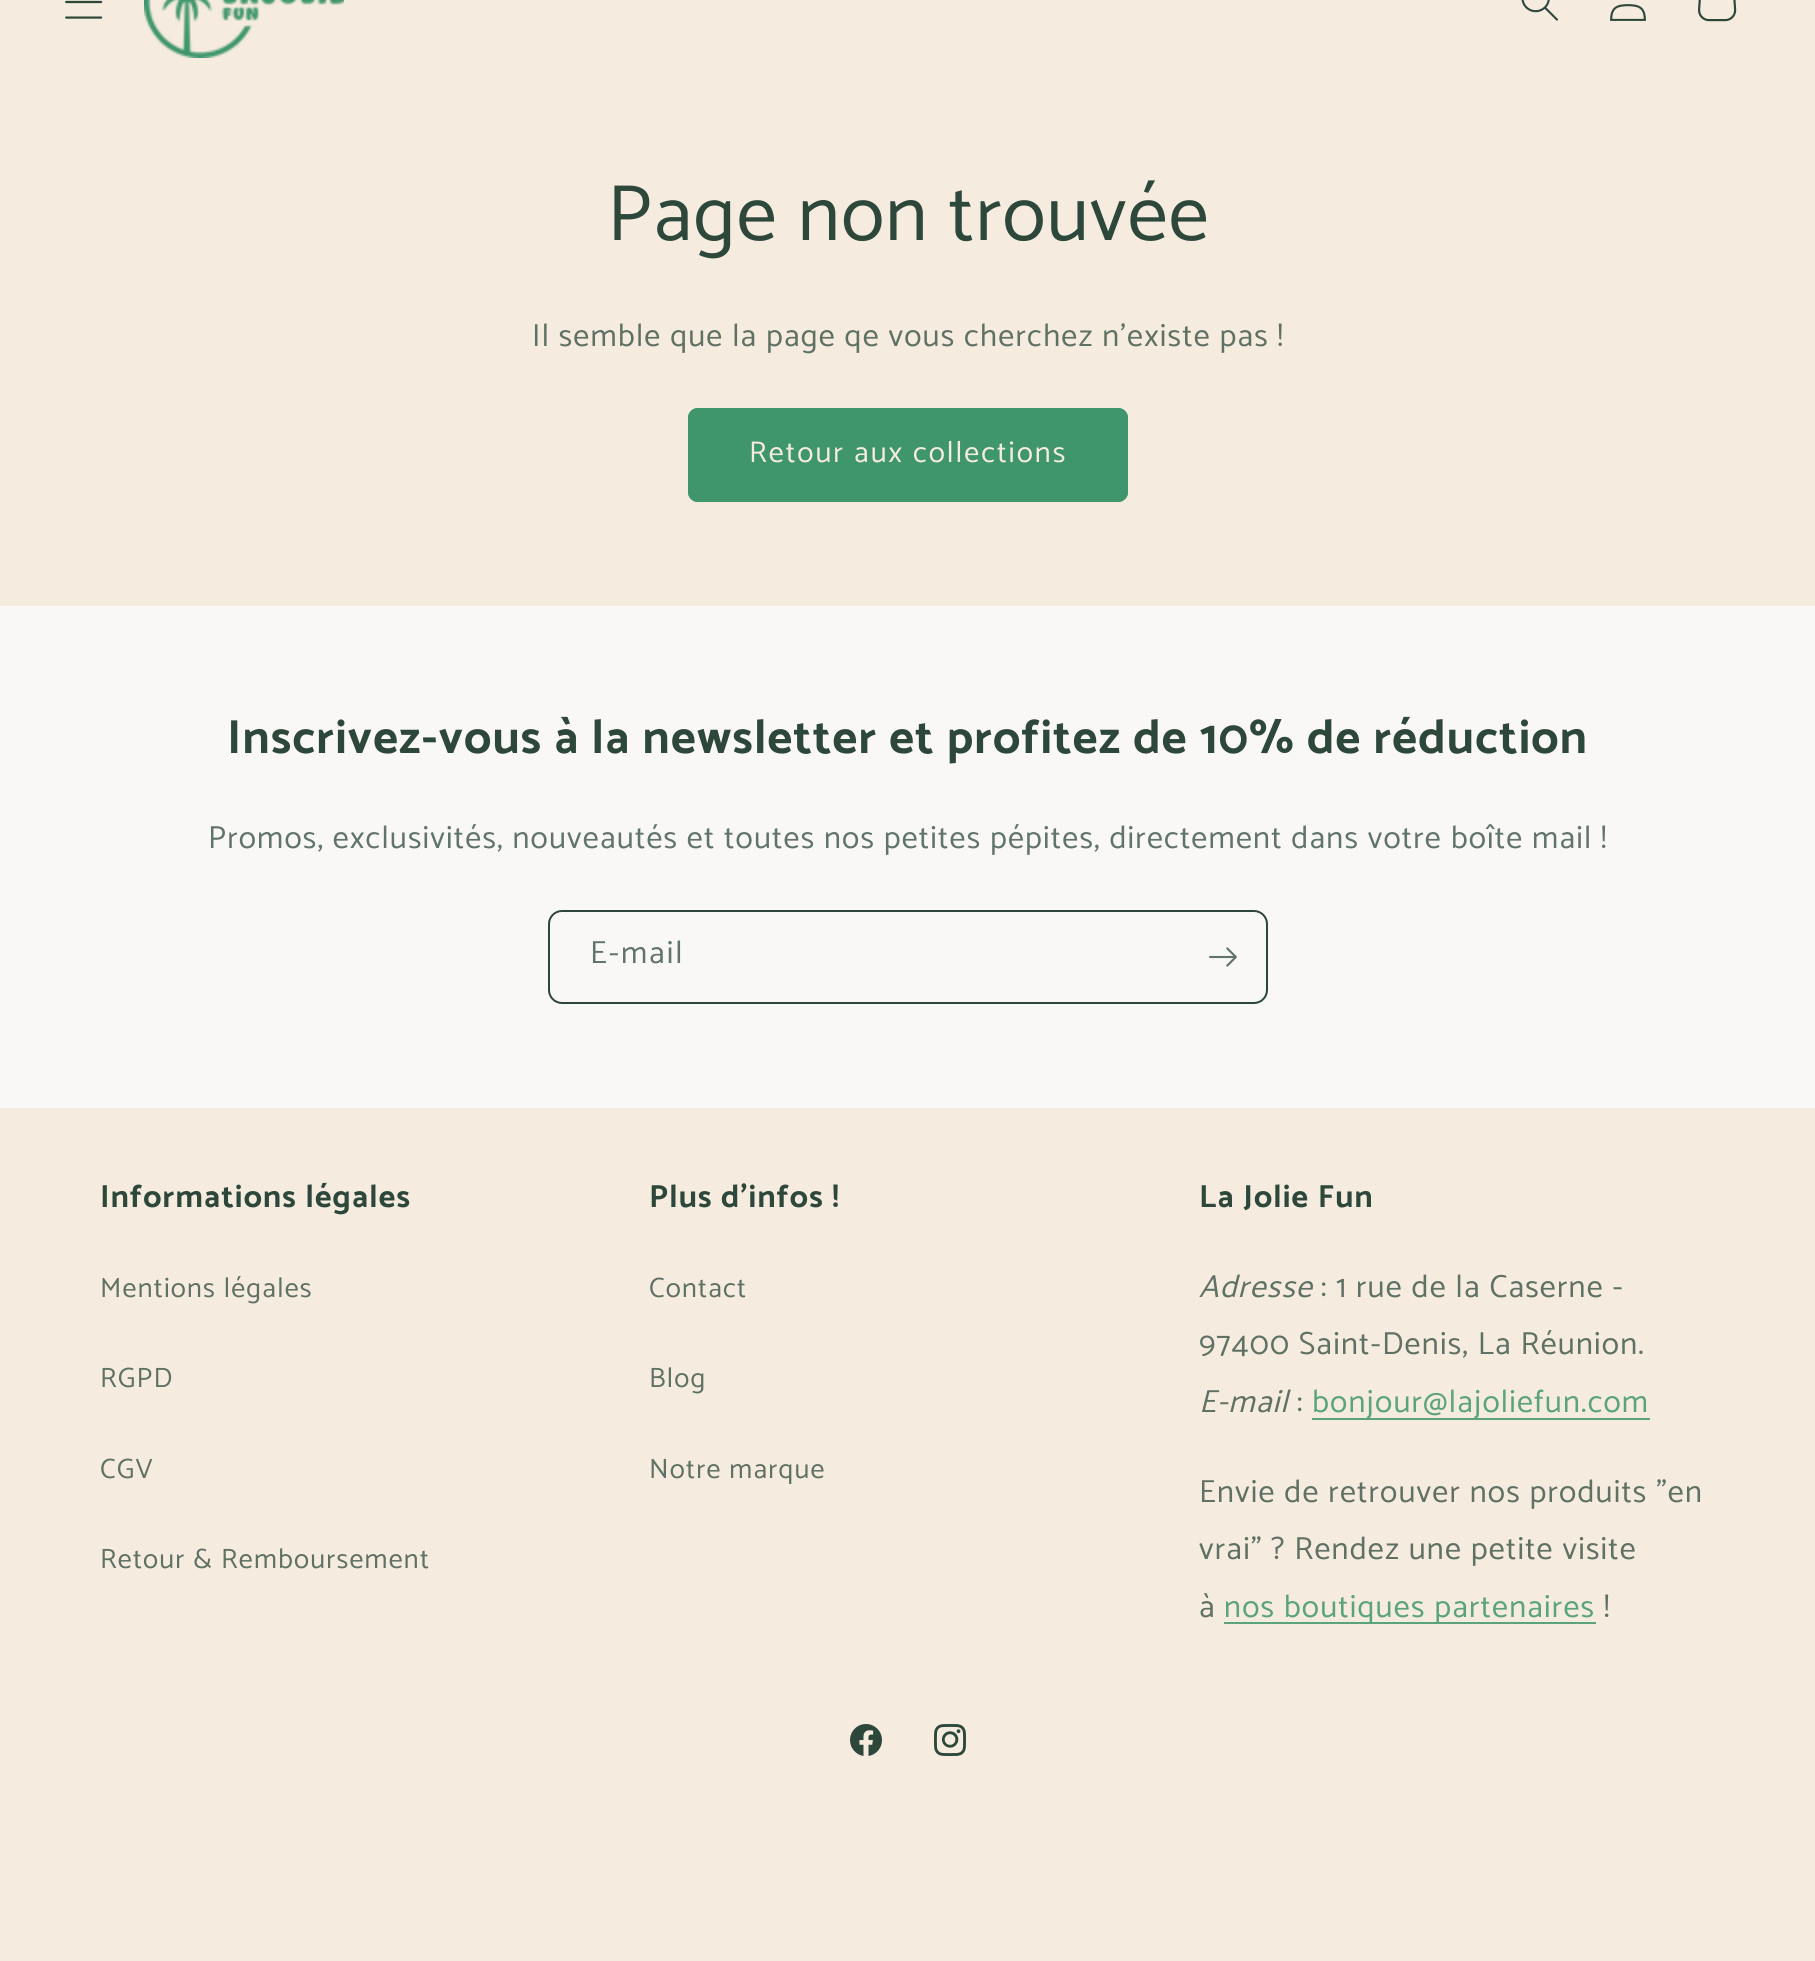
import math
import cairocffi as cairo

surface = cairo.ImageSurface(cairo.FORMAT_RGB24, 1815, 1961)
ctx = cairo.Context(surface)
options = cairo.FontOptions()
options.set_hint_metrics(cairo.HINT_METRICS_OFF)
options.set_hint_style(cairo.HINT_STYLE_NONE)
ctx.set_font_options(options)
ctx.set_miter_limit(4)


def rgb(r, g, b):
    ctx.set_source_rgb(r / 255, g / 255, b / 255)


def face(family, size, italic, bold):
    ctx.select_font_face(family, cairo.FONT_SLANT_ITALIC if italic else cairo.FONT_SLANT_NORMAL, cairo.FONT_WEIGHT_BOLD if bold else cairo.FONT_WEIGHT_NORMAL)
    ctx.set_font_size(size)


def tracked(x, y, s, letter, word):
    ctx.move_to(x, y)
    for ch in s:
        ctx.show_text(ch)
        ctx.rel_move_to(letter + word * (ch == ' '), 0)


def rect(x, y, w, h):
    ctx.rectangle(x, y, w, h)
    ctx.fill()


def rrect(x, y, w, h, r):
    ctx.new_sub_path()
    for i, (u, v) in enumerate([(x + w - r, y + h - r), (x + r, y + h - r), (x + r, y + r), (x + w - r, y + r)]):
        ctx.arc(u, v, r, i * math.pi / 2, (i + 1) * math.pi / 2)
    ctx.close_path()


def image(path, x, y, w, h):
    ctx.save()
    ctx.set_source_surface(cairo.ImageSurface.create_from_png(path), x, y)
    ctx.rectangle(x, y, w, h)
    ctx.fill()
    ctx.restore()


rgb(246, 235, 223)
ctx.paint()
image('image0.png', 65, 0, 38, 19)
image('image1.png', 144, 0, 200, 58)
image('image2.png', 1521, 0, 37, 21)
image('image3.png', 1610, 4, 36, 17)
image('image4.png', 1698, 0, 39, 22)
face('Catamaran', 80, 0, 0)
rgb(45, 72, 59)
tracked(607, 240, 'Page non trouvée', 1.2, 0)
face('Catamaran', 32, 0, 0)
rgb(95, 113, 100)
tracked(532, 346, 'Il semble que la page qe vous cherchez n\'existe pas !', 1.2, 0)
rgb(63, 150, 108)
rrect(688, 408, 440, 94, 10)
ctx.fill()
rrect(689, 409, 438, 92, 9)
ctx.stroke()
face('Catamaran', 30, 0, 0)
rgb(246, 235, 223)
tracked(749, 462, 'Retour aux collections', 2, 0)
rgb(250, 248, 246)
rect(0, 606, 1815, 502)
face('Catamaran', 48, 0, 1)
rgb(45, 72, 59)
tracked(227, 753, 'Inscrivez-vous à la newsletter et profitez de 10% de réduction', 1.2, 0)
face('Catamaran', 32, 0, 0)
rgb(96, 116, 106)
tracked(208, 848, 'Promos, exclusivités, nouveautés et toutes nos petites pépites, directement dans votre boîte mail !', 1.2, 0)
rrect(549, 911, 718, 92, 13)
rgb(45, 72, 59)
ctx.stroke()
rgb(96, 116, 106)
tracked(590, 963, 'E-mail', 2, 0)
image('image5.png', 1209, 947, 28, 20)
face('Catamaran', 32, 0, 1)
rgb(45, 72, 59)
tracked(100, 1207, 'Informations légales', 1.2, 0)
face('Catamaran', 28, 0, 0)
rgb(95, 113, 100)
tracked(100, 1297, 'Mentions légales', 1.2, 0)
tracked(100, 1387, 'RGPD', 1.2, 0)
tracked(100, 1478, 'CGV', 1.2, 0)
tracked(100, 1568, 'Retour & Remboursement', 1.2, 0)
face('Catamaran', 32, 0, 1)
rgb(45, 72, 59)
tracked(649, 1207, 'Plus d\'infos !', 1.2, 0)
face('Catamaran', 28, 0, 0)
rgb(95, 113, 100)
tracked(649, 1297, 'Contact', 1.2, 0)
tracked(649, 1387, 'Blog', 1.2, 0)
tracked(649, 1478, 'Notre marque', 1.2, 0)
face('Catamaran', 32, 0, 1)
rgb(45, 72, 59)
tracked(1199, 1207, 'La Jolie Fun', 1.2, 0)
face('Catamaran', 32, 1, 0)
rgb(95, 113, 100)
tracked(1199, 1297, 'Adresse', 1.2, 0)
face('Catamaran', 32, 0, 0)
tracked(1321, 1297, ': 1 rue de la Caserne -', 1.2, 0)
tracked(1199, 1354, '97400 Saint-Denis, La Réunion.', 1.2, 0)
face('Catamaran', 32, 1, 0)
tracked(1199, 1412, 'E-mail', 1.2, 0)
face('Catamaran', 32, 0, 0)
tracked(1297, 1412, ':', 1.2, 0)
rgb(90, 163, 125)
rect(1312, 1418, 338, 2)
tracked(1312, 1412, 'bonjour@lajoliefun.com', 1.2, 0)
rgb(95, 113, 100)
tracked(1199, 1502, 'Envie de retrouver nos produits "en', 1.2, 0)
tracked(1199, 1559, 'vrai" ? Rendez une petite visite', 1.2, 0)
tracked(1199, 1617, 'à', 1.2, 0)
rgb(90, 163, 125)
rect(1224, 1622, 372, 2)
tracked(1224, 1617, 'nos boutiques partenaires', 1.2, 0)
rgb(95, 113, 100)
tracked(1604, 1617, '!', 1.2, 0)
image('image6.png', 850, 1724, 32, 32)
image('image7.png', 934, 1724, 32, 32)
surface.write_to_png('render.png')
